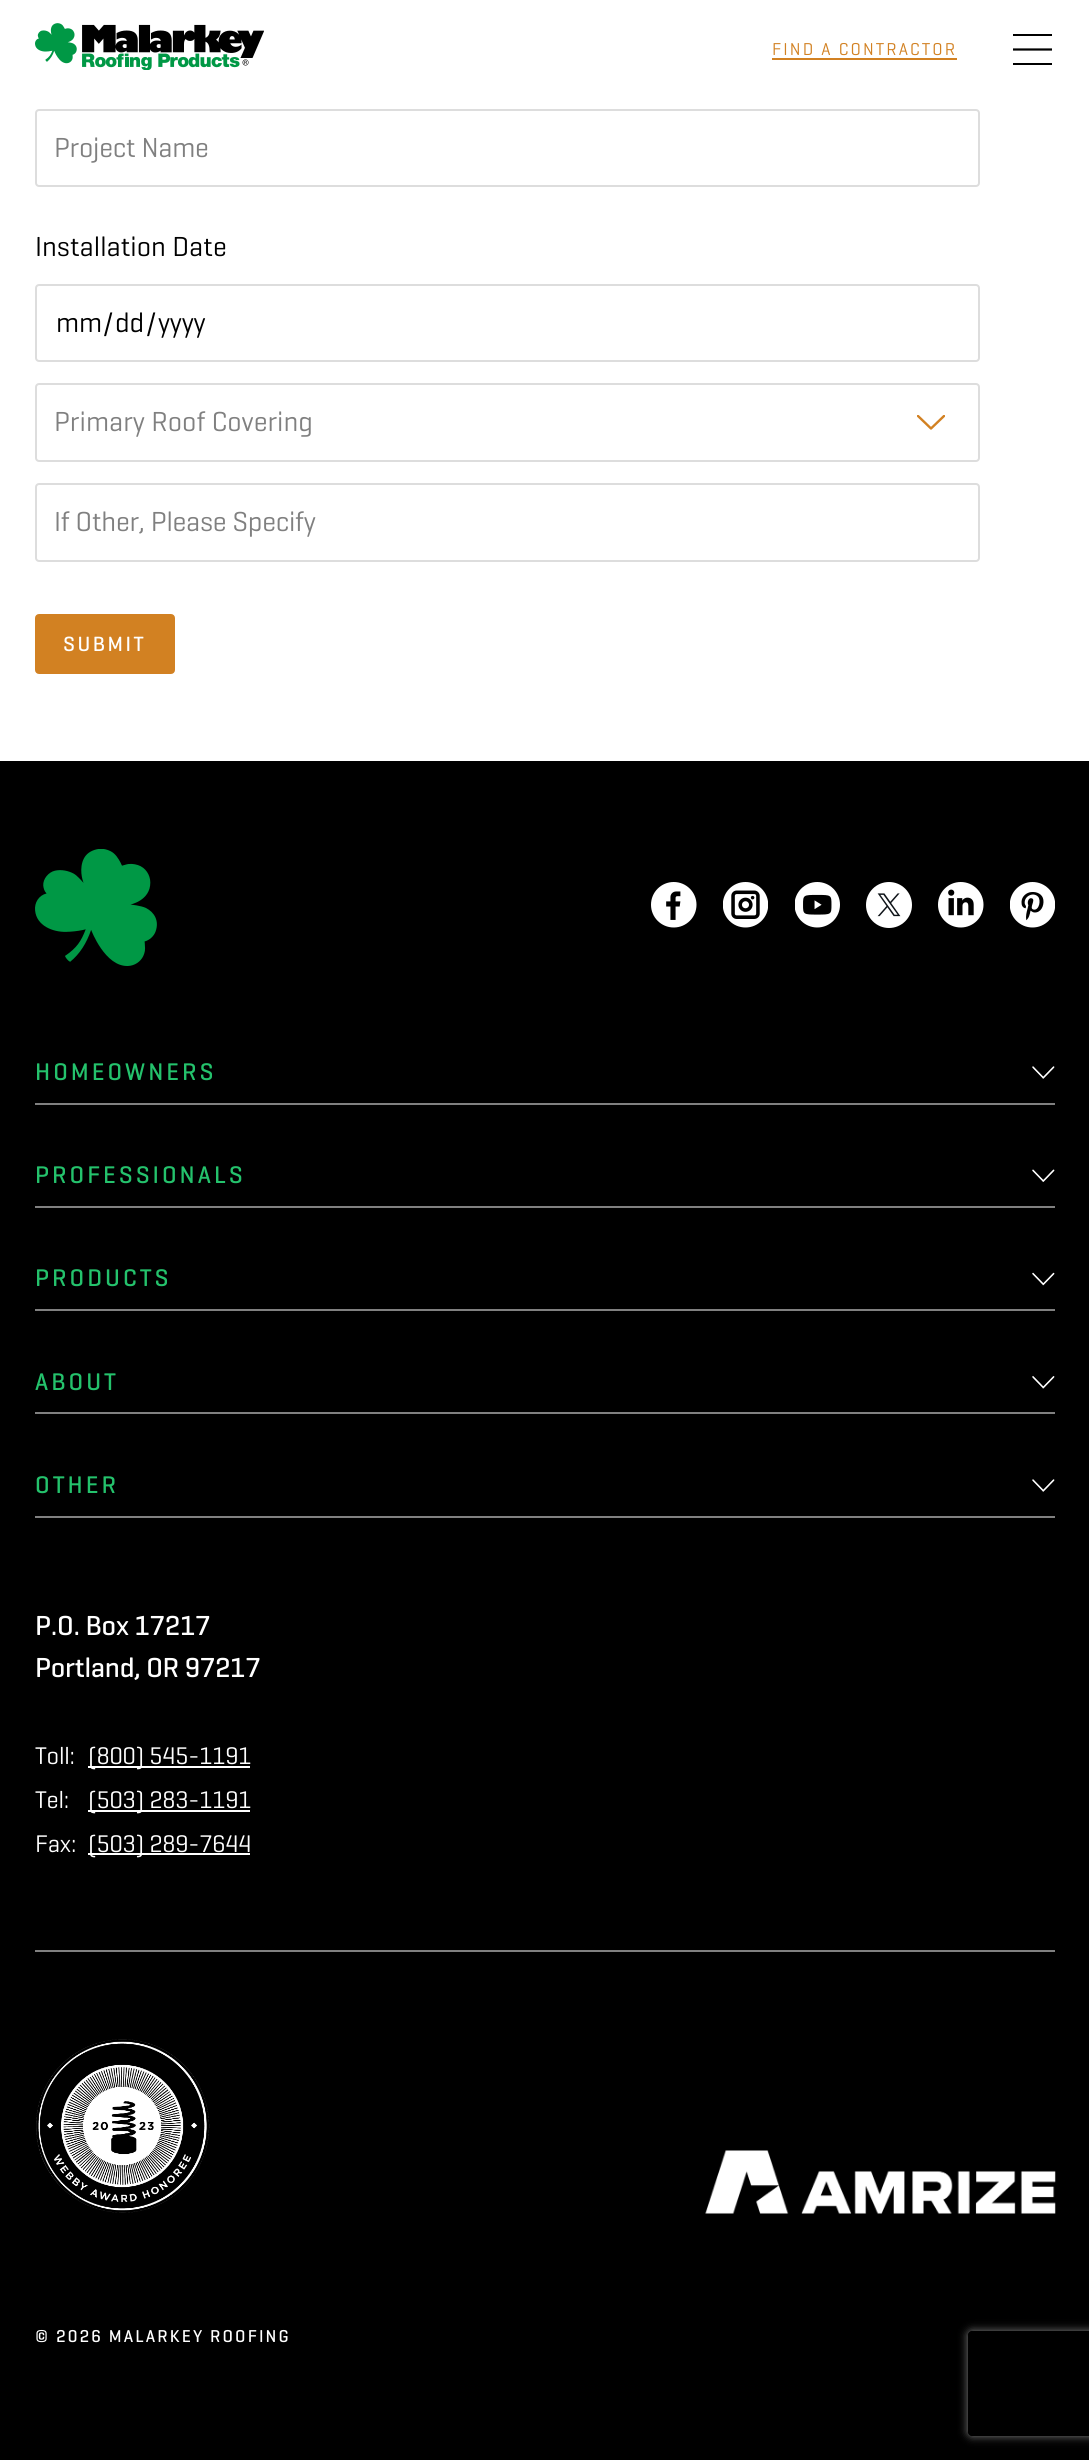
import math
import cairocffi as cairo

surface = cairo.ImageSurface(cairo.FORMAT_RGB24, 1089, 2460)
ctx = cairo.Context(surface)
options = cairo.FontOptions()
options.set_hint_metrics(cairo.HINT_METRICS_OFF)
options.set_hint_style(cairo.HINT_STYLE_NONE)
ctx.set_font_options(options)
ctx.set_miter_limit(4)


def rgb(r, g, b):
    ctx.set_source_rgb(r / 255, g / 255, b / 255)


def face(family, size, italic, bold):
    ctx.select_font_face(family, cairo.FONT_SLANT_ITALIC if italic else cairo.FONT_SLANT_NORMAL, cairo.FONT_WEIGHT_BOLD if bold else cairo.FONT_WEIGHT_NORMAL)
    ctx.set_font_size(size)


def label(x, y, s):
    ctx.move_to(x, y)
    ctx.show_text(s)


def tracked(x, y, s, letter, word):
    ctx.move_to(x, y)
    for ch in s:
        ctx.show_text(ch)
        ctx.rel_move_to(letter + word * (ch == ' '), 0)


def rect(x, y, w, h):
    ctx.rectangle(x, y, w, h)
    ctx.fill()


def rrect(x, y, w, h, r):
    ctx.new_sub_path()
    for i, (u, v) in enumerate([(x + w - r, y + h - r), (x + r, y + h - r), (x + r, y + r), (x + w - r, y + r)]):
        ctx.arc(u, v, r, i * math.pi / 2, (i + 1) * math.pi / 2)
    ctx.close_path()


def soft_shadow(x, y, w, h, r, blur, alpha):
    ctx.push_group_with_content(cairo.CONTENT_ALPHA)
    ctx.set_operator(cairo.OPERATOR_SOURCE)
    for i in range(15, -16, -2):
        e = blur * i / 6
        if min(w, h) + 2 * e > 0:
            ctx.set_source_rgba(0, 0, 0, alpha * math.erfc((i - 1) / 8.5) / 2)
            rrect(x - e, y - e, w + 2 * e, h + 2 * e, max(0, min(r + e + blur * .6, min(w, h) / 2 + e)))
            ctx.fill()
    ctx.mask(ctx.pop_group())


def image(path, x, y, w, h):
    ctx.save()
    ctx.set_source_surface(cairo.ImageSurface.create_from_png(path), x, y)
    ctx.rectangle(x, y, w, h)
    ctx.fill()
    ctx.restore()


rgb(255, 255, 255)
ctx.paint()
image('image0.png', 35, 23, 229, 47)
face('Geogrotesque', 17.5, 0, 0)
rgb(210, 129, 34)
tracked(772, 55, 'FIND A CONTRACTOR', 2.1, 0)
rect(772, 58, 185, 2)
rgb(0, 0, 0)
rect(1013, 34, 39, 2)
ctx.new_path()
ctx.move_to(1013, 49.5)
ctx.line_to(1052, 49.5)
ctx.set_line_width(2.2)
ctx.stroke()
rect(1013, 63, 39, 2)
rrect(36, 110, 943, 76, 3)
rgb(221, 221, 221)
ctx.set_line_width(2)
ctx.stroke()
face('Geogrotesque', 28, 0, 0)
rgb(128, 128, 128)
tracked(54, 157, 'Project Name', -0.25, 0)
rgb(0, 0, 0)
label(35, 256, 'Installation Date')
rrect(36, 285, 943, 76, 3)
rgb(221, 221, 221)
ctx.stroke()
rgb(0, 0, 0)
tracked(56, 332, 'mm', -0.25, 0)
tracked(103, 332, '/', -0.25, 0)
tracked(115, 332, 'dd', -0.25, 0)
tracked(146, 332, '/', -0.25, 0)
tracked(158, 332, 'yyyy', -0.25, 0)
ctx.save()
ctx.rectangle(917, 415, 28, 16)
ctx.clip()
ctx.new_path()
ctx.move_to(944, 416)
ctx.line_to(931, 428.5)
ctx.line_to(918, 416)
rgb(210, 129, 34)
ctx.set_line_width(2.4)
ctx.set_line_cap(cairo.LINE_CAP_ROUND)
ctx.set_line_join(cairo.LINE_JOIN_ROUND)
ctx.stroke()
ctx.restore()
rrect(36, 384, 943, 77, 3)
rgb(221, 221, 221)
ctx.stroke()
rgb(128, 128, 128)
label(54, 431, 'Primary Roof Covering')
rrect(36, 484, 943, 77, 3)
rgb(221, 221, 221)
ctx.stroke()
rgb(128, 128, 128)
tracked(54, 531, 'If Other, Please Specify', -0.25, 0)
rgb(210, 129, 34)
rrect(36, 615, 138, 58, 3)
ctx.fill_preserve()
ctx.stroke()
face('Geogrotesque Medium', 21, 0, 0)
rgb(255, 255, 255)
tracked(63, 651, 'SUBMIT', 2.5, 0)
rgb(0, 0, 0)
rect(0, 761, 1089, 1699)
image('image1.png', 35, 849, 122, 117)
image('image2.png', 651, 882, 46, 46)
image('image3.png', 723, 882, 45, 46)
image('image4.png', 795, 882, 45, 46)
image('image5.png', 866, 882, 46, 46)
image('image6.png', 938, 882, 46, 46)
image('image7.png', 1010, 882, 45, 46)
rgb(128, 128, 128)
rect(35, 1103, 1020, 2)
face('Geogrotesque Medium', 24.5, 0, 0)
rgb(36, 194, 108)
tracked(35, 1080, 'HOMEOWNERS', 3, 0)
image('image8.png', 1032, 1066, 23, 13)
rgb(128, 128, 128)
rect(35, 1206, 1020, 2)
rgb(36, 194, 108)
tracked(35, 1183, 'PROFESSIONALS', 3, 0)
image('image9.png', 1032, 1169, 23, 13)
rgb(128, 128, 128)
rect(35, 1309, 1020, 2)
rgb(36, 194, 108)
tracked(35, 1286, 'PRODUCTS', 3, 0)
image('image10.png', 1032, 1272, 23, 14)
rgb(128, 128, 128)
rect(35, 1412, 1020, 2)
rgb(36, 194, 108)
tracked(35, 1390, 'ABOUT', 3, 0)
image('image11.png', 1032, 1376, 23, 13)
rgb(128, 128, 128)
rect(35, 1516, 1020, 2)
rgb(36, 194, 108)
tracked(35, 1493, 'OTHER', 3, 0)
image('image8.png', 1032, 1479, 23, 13)
rgb(128, 128, 128)
rect(35, 1950, 1020, 2)
face('Geogrotesque Medium', 28, 0, 0)
rgb(255, 255, 255)
tracked(35, 1635, 'P.O. Box 17217', -0.25, 0)
tracked(35, 1677, 'Portland, OR 97217', -0.25, 0)
face('Geogrotesque', 24.5, 0, 0)
tracked(35, 1764, 'Toll:', -0.25, 0)
rect(88, 1766, 162, 2)
tracked(88, 1764, '(800) 545-1191', -0.25, 0)
tracked(35, 1808, 'Tel:', -0.25, 0)
rect(88, 1810, 162, 2)
tracked(88, 1808, '(503) 283-1191', -0.25, 0)
tracked(35, 1852, 'Fax:', -0.25, 0)
rect(88, 1853, 162, 2)
tracked(88, 1852, '(503) 289-7644', -0.25, 0)
image('image12.png', 36, 2039, 174, 174)
image('image13.png', 705, 2150, 351, 64)
face('Geogrotesque Medium', 17.5, 0, 0)
tracked(35, 2342, '© 2026 MALARKEY ROOFING', 2.1, 0)
ctx.save()
ctx.set_fill_rule(cairo.FILL_RULE_EVEN_ODD)
ctx.new_path()
ctx.move_to(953, 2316)
ctx.line_to(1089, 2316)
ctx.line_to(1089, 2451)
ctx.line_to(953, 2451)
ctx.close_path()
ctx.move_to(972, 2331)
ctx.line_to(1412, 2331)
ctx.curve_to(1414, 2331, 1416, 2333, 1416, 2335)
ctx.line_to(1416, 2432)
ctx.curve_to(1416, 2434, 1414, 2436, 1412, 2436)
ctx.line_to(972, 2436)
ctx.curve_to(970, 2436, 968, 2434, 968, 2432)
ctx.line_to(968, 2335)
ctx.curve_to(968, 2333, 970, 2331, 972, 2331)
ctx.close_path()
ctx.clip()
rgb(128, 128, 128)
soft_shadow(968, 2331, 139, 105, 4, 4.5, 1)
ctx.restore()
surface.write_to_png('render.png')
